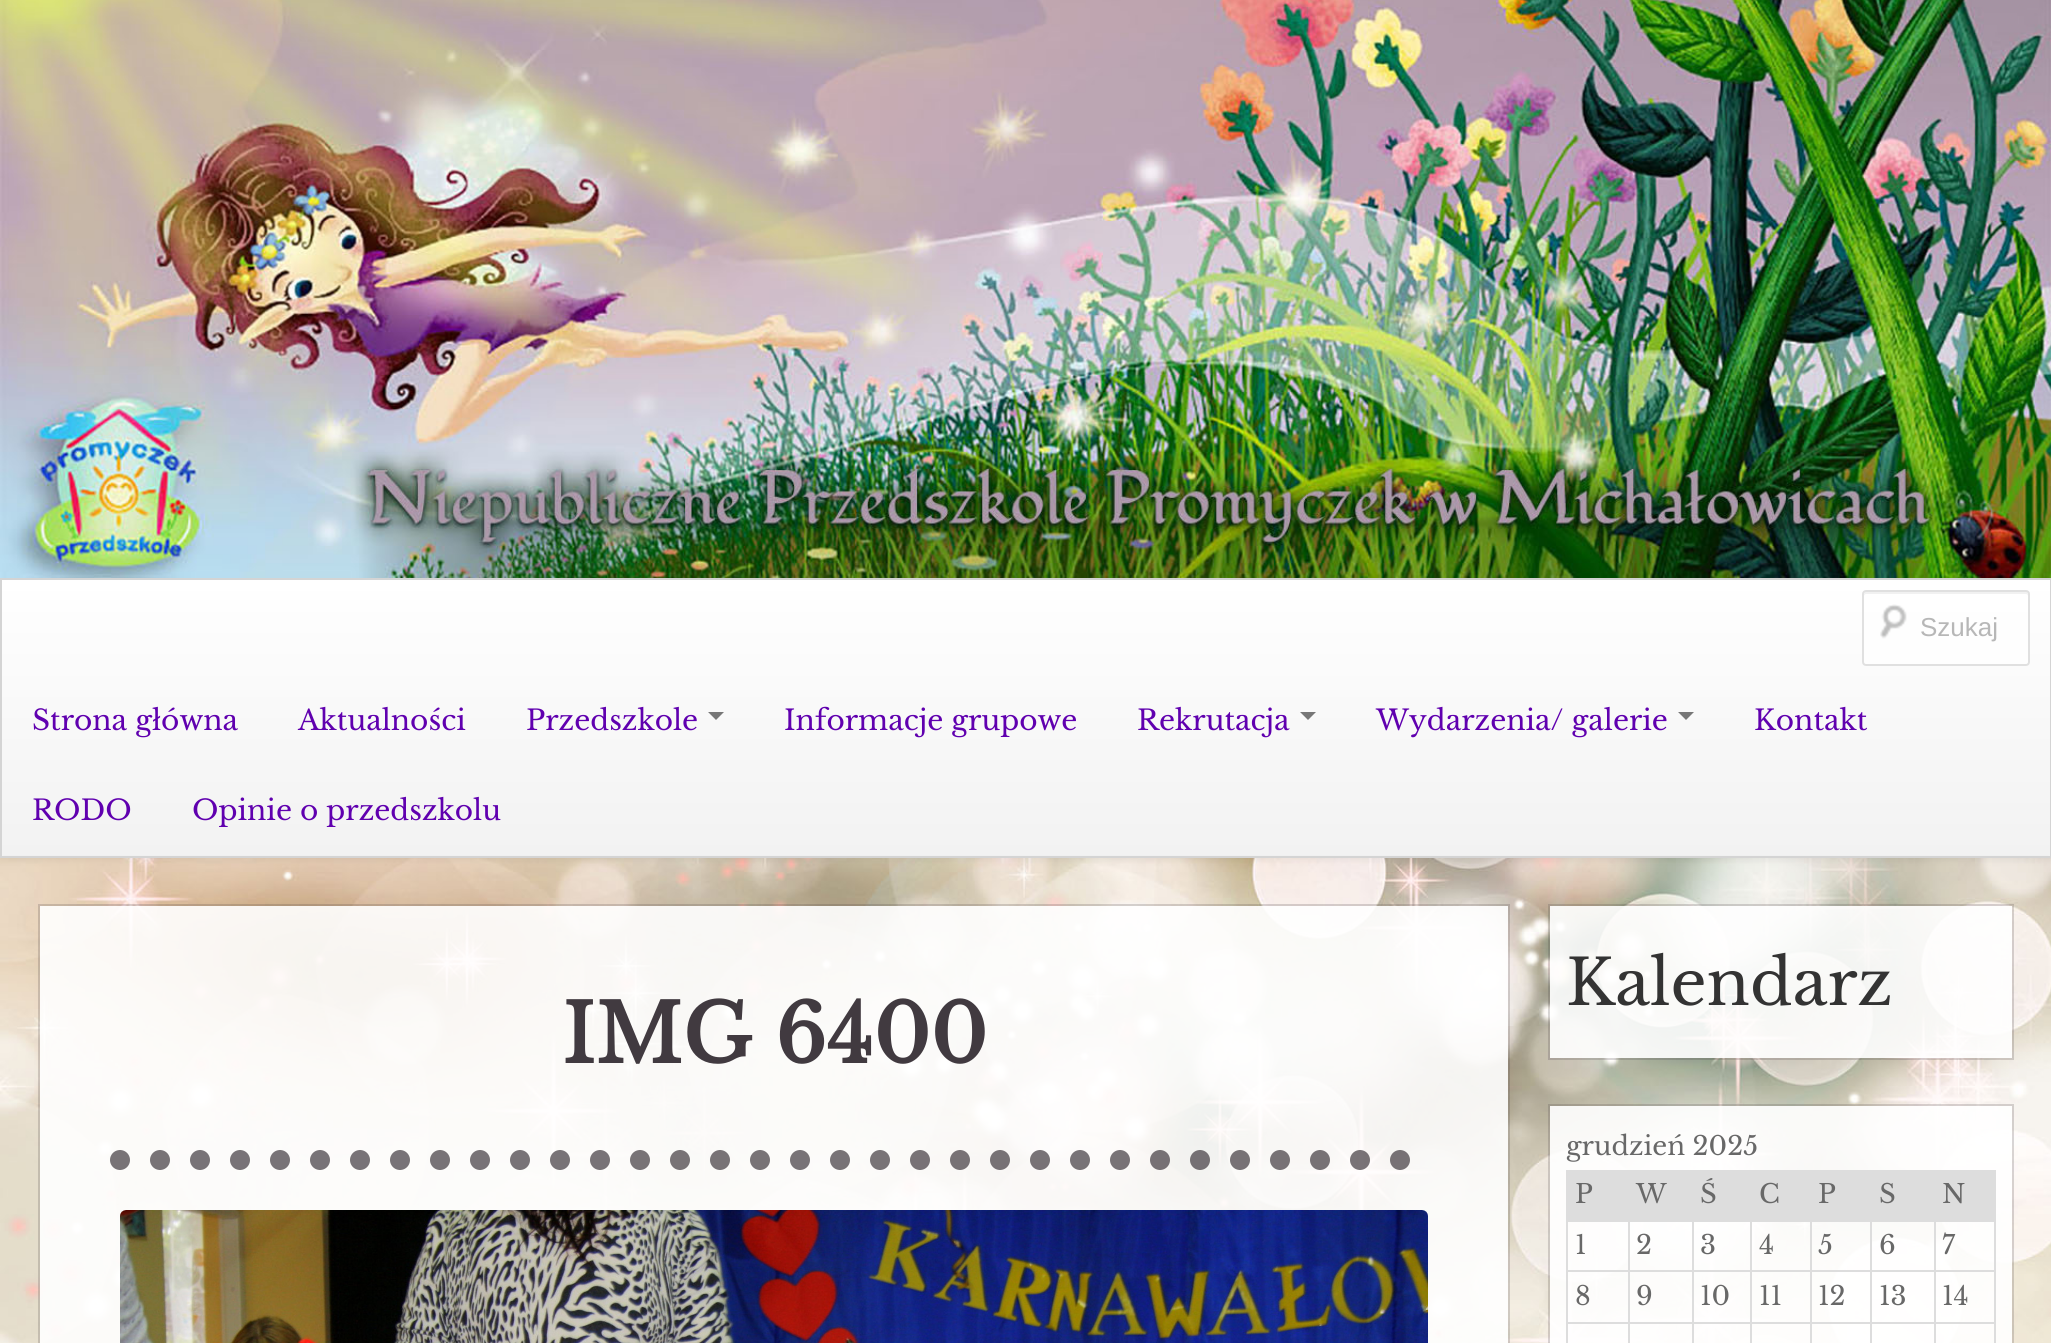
import math
import cairocffi as cairo

surface = cairo.ImageSurface(cairo.FORMAT_RGB24, 2051, 1343)
ctx = cairo.Context(surface)
options = cairo.FontOptions()
options.set_hint_metrics(cairo.HINT_METRICS_OFF)
options.set_hint_style(cairo.HINT_STYLE_NONE)
ctx.set_font_options(options)
ctx.set_miter_limit(4)


def rgb(r, g, b):
    ctx.set_source_rgb(r / 255, g / 255, b / 255)


def face(family, size, italic, bold):
    ctx.select_font_face(family, cairo.FONT_SLANT_ITALIC if italic else cairo.FONT_SLANT_NORMAL, cairo.FONT_WEIGHT_BOLD if bold else cairo.FONT_WEIGHT_NORMAL)
    ctx.set_font_size(size)


def label(x, y, s):
    ctx.move_to(x, y)
    ctx.show_text(s)


def rect(x, y, w, h):
    ctx.rectangle(x, y, w, h)
    ctx.fill()


def rrect(x, y, w, h, r):
    ctx.new_sub_path()
    for i, (u, v) in enumerate([(x + w - r, y + h - r), (x + r, y + h - r), (x + r, y + r), (x + w - r, y + r)]):
        ctx.arc(u, v, r, i * math.pi / 2, (i + 1) * math.pi / 2)
    ctx.close_path()


def soft_shadow(x, y, w, h, r, blur, alpha):
    ctx.push_group_with_content(cairo.CONTENT_ALPHA)
    ctx.set_operator(cairo.OPERATOR_SOURCE)
    for i in range(15, -16, -2):
        e = blur * i / 6
        if min(w, h) + 2 * e > 0:
            ctx.set_source_rgba(0, 0, 0, alpha * math.erfc((i - 1) / 8.5) / 2)
            rrect(x - e, y - e, w + 2 * e, h + 2 * e, max(0, min(r + e + blur * .6, min(w, h) / 2 + e)))
            ctx.fill()
    ctx.mask(ctx.pop_group())


def image(path, x, y, w, h):
    ctx.save()
    ctx.set_source_surface(cairo.ImageSurface.create_from_png(path), x, y)
    ctx.rectangle(x, y, w, h)
    ctx.fill()
    ctx.restore()


rgb(255, 255, 255)
ctx.paint()
image('image0.png', 0, 858, 2051, 485)
rgb(0, 0, 0)
soft_shadow(0, 580, 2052, 280, 0, 4, 0.07)
image('image1.png', 0, 0, 2051, 578)
gradient = cairo.LinearGradient(1026, 580, 1026, 856)
gradient.add_color_stop_rgba(0, 1, 1, 1, 1)
gradient.add_color_stop_rgba(1, 0.949, 0.949, 0.949, 1)
ctx.set_source(gradient)
rect(2, 580, 2048, 275)
ctx.rectangle(1, 579, 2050, 278)
rgb(212, 212, 212)
ctx.stroke()
ctx.set_source_rgba(1, 1, 1, 0.7)
rrect(1862, 590, 168, 76, 4)
ctx.fill()
image('image2.png', 1880, 604, 27, 35)
rgb(241, 241, 241)
ctx.new_path()
ctx.move_to(1866, 594)
ctx.line_to(2026, 594)
ctx.curve_to(2027, 594, 2028, 595, 2028, 596)
ctx.curve_to(2028, 594, 2028, 592, 2026, 592)
ctx.line_to(1866, 592)
ctx.curve_to(1864, 592, 1864, 594, 1864, 596)
ctx.curve_to(1864, 595, 1865, 594, 1866, 594)
ctx.close_path()
ctx.fill()
rrect(1863, 591, 166, 74, 3)
ctx.set_source_rgba(0.831, 0.831, 0.831, 0.7)
ctx.stroke()
face('Liberation Sans', 26, 0, 0)
rgb(183, 183, 183)
label(1920, 636, 'Szukaj')
face('Libre Baskerville', 28, 0, 0)
rgb(96, 0, 175)
label(32, 730, 'Strona główna')
label(298, 730, 'Aktualności')
label(526, 730, 'Przedszkole')
rgb(119, 119, 119)
ctx.new_path()
ctx.move_to(708, 712)
ctx.line_to(724, 712)
ctx.line_to(716, 720)
ctx.close_path()
ctx.fill()
rgb(96, 0, 175)
label(784, 730, 'Informacje grupowe')
label(1137, 730, 'Rekrutacja')
rgb(119, 119, 119)
ctx.new_path()
ctx.move_to(1300, 712)
ctx.line_to(1316, 712)
ctx.line_to(1308, 720)
ctx.close_path()
ctx.fill()
rgb(96, 0, 175)
label(1376, 730, 'Wydarzenia/ galerie')
rgb(119, 119, 119)
ctx.new_path()
ctx.move_to(1678, 712)
ctx.line_to(1694, 712)
ctx.line_to(1686, 720)
ctx.close_path()
ctx.fill()
rgb(96, 0, 175)
label(1754, 730, 'Kontakt')
label(32, 820, 'RODO')
label(192, 820, 'Opinie o przedszkolu')
ctx.set_source_rgba(1, 1, 1, 0.9)
rect(40, 906, 1468, 437)
ctx.new_path()
ctx.move_to(120, 1160)
ctx.line_to(1428, 1160)
ctx.set_source_rgba(0.255, 0.227, 0.251, 0.7)
ctx.set_line_width(20)
ctx.set_line_cap(cairo.LINE_CAP_ROUND)
ctx.set_dash([0, 40])
ctx.stroke()
image('image3.png', 120, 1210, 1308, 133)
ctx.rectangle(39, 905, 1470, 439)
ctx.set_source_rgba(0.255, 0.227, 0.251, 0.2)
ctx.set_line_width(2)
ctx.set_line_cap(cairo.LINE_CAP_BUTT)
ctx.set_dash([])
ctx.stroke()
face('Libre Baskerville', 80, 0, 1)
rgb(65, 58, 64)
label(562, 1063, 'IMG 6400')
ctx.set_source_rgba(1, 1, 1, 0.9)
rect(1550, 906, 462, 152)
ctx.rectangle(1549, 905, 464, 154)
ctx.set_source_rgba(0.255, 0.227, 0.251, 0.2)
ctx.stroke()
face('Libre Baskerville', 63, 0, 0)
rgb(51, 51, 51)
label(1566, 1005, 'Kalendarz')
ctx.set_source_rgba(1, 1, 1, 0.9)
rect(1550, 1106, 462, 237)
rgb(221, 221, 221)
rect(1568, 1170, 426, 50)
rect(1934, 1220, 62, 2)
rect(1934, 1270, 62, 2)
rect(1934, 1322, 62, 2)
rect(1934, 1322, 2, 21)
rect(1870, 1322, 66, 2)
rect(1934, 1270, 2, 54)
rect(1870, 1270, 66, 2)
rect(1934, 1220, 2, 52)
rect(1870, 1220, 66, 2)
rect(1870, 1322, 2, 21)
rect(1810, 1322, 62, 2)
rect(1870, 1270, 2, 54)
rect(1810, 1270, 62, 2)
rect(1870, 1220, 2, 52)
rect(1810, 1220, 62, 2)
rect(1810, 1322, 2, 21)
rect(1750, 1322, 62, 2)
rect(1810, 1270, 2, 54)
rect(1750, 1270, 62, 2)
rect(1810, 1220, 2, 52)
rect(1750, 1220, 62, 2)
rect(1750, 1322, 2, 21)
rect(1692, 1322, 60, 2)
rect(1750, 1270, 2, 54)
rect(1692, 1270, 60, 2)
rect(1750, 1220, 2, 52)
rect(1692, 1220, 60, 2)
rect(1692, 1322, 2, 21)
rect(1628, 1322, 66, 2)
rect(1692, 1270, 2, 54)
rect(1628, 1270, 66, 2)
rect(1692, 1220, 2, 52)
rect(1628, 1220, 66, 2)
rect(1628, 1322, 2, 21)
rect(1566, 1322, 64, 2)
rect(1628, 1270, 2, 54)
rect(1566, 1270, 64, 2)
rect(1628, 1220, 2, 52)
rect(1566, 1220, 64, 2)
rect(1566, 1322, 2, 21)
rect(1566, 1270, 2, 54)
rect(1566, 1170, 2, 102)
rect(1994, 1322, 2, 21)
rect(1994, 1270, 2, 54)
rect(1994, 1170, 2, 102)
ctx.rectangle(1549, 1105, 464, 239)
ctx.set_source_rgba(0.255, 0.227, 0.251, 0.2)
ctx.stroke()
face('Libre Baskerville', 26, 0, 0)
rgb(104, 104, 104)
label(1566, 1155, 'grudzień 2025')
label(1575, 1203, 'P')
label(1636, 1203, 'W')
label(1700, 1203, 'Ś')
label(1759, 1203, 'C')
label(1818, 1203, 'P')
label(1879, 1203, 'S')
label(1942, 1203, 'N')
label(1575, 1254, '1')
label(1636, 1254, '2')
label(1700, 1254, '3')
label(1759, 1254, '4')
label(1818, 1254, '5')
label(1879, 1254, '6')
label(1942, 1254, '7')
label(1575, 1305, '8')
label(1636, 1305, '9')
label(1700, 1305, '10')
label(1759, 1305, '11')
label(1818, 1305, '12')
label(1879, 1305, '13')
label(1942, 1305, '14')
surface.write_to_png('render.png')
